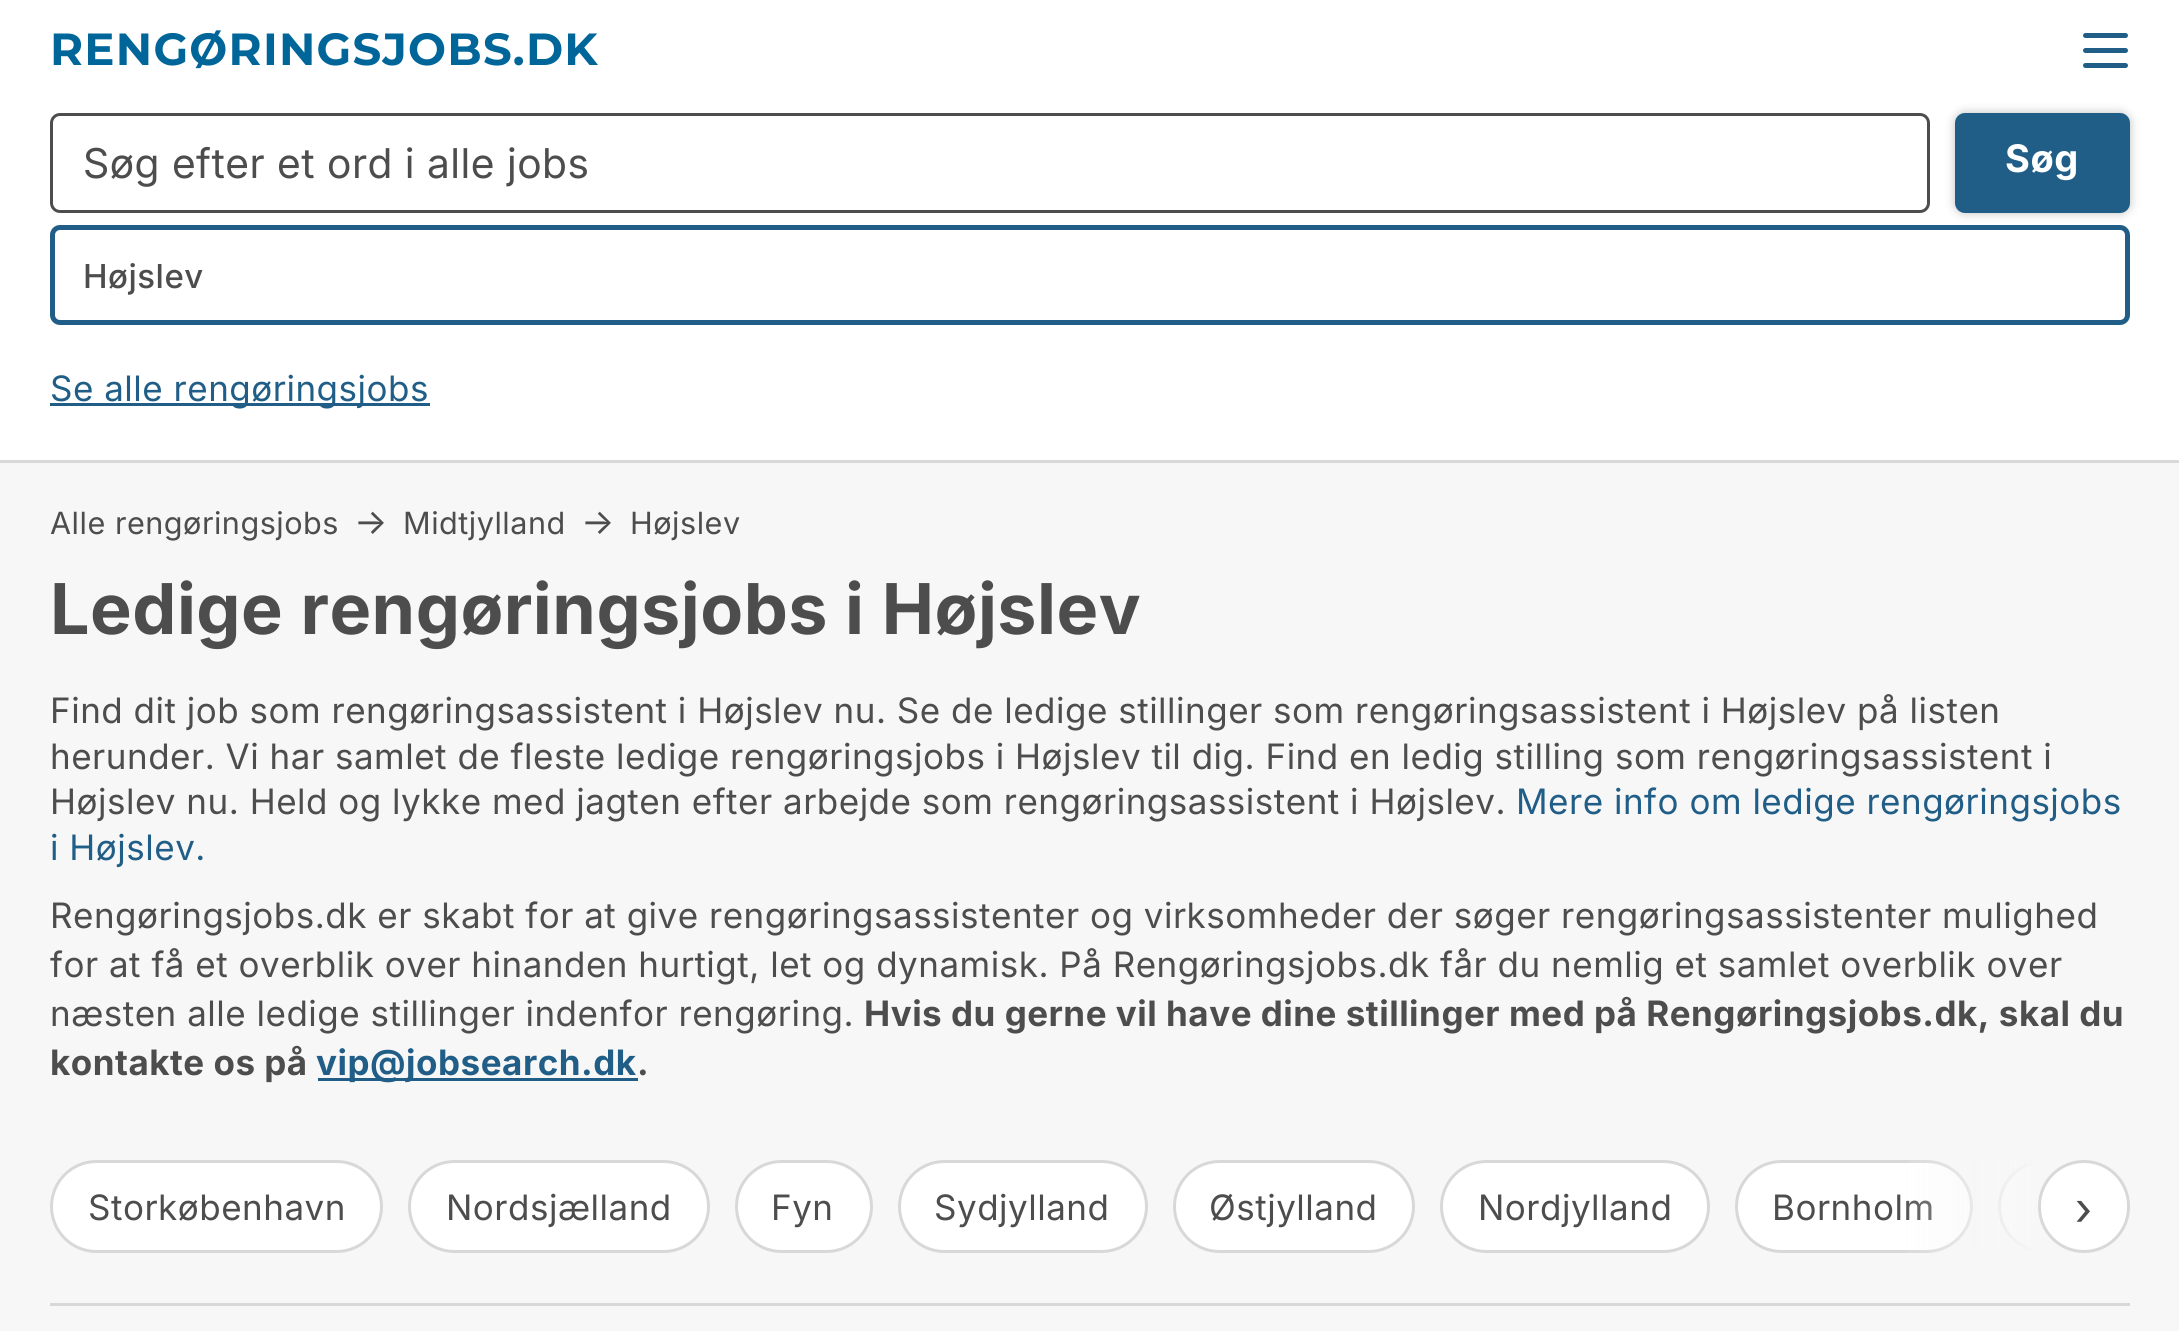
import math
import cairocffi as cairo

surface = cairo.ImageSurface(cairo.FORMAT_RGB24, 2179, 1331)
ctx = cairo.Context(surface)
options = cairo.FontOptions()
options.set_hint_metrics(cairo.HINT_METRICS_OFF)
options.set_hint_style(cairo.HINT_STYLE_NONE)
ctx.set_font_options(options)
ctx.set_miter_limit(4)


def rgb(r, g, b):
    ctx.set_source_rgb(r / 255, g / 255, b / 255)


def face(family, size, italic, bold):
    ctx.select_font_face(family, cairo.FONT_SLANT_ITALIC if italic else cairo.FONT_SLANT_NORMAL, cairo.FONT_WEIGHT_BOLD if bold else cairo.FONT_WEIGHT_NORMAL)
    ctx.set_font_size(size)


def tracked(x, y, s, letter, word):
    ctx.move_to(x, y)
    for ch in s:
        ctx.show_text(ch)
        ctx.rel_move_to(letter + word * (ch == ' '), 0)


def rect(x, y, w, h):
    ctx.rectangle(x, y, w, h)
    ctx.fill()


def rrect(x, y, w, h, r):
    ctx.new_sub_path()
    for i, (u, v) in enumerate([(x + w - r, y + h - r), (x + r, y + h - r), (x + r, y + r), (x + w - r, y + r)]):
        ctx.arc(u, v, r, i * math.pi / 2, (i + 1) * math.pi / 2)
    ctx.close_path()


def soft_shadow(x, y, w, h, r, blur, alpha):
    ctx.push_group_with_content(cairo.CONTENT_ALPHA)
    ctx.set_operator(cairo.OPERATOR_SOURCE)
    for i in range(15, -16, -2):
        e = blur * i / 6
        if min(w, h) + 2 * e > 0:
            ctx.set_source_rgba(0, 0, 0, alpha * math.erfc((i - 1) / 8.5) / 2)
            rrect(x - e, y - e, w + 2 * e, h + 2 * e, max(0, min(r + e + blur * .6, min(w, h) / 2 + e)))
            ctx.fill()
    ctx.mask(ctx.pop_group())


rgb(255, 255, 255)
ctx.paint()
face('Montserrat', 45, 0, 1)
rgb(0, 102, 153)
tracked(50, 65, 'RENGØRINGSJOBS.DK', 1.25, 0)
rgb(33, 94, 135)
rrect(2083, 33, 45, 5, 2.5)
ctx.fill()
rrect(2083, 48, 45, 5, 2.5)
ctx.fill()
rrect(2083, 63, 45, 5, 2.5)
ctx.fill()
rgb(247, 247, 247)
rect(0, 463, 2179, 868)
rgb(216, 216, 216)
rect(0, 460, 2179, 3)
rrect(51.5, 114.5, 1877, 97, 8.5)
rgb(77, 77, 77)
ctx.set_line_width(3)
ctx.stroke()
face('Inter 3', 41.1, 0, 0)
tracked(83, 178, 'Søg efter et ord i alle jobs', 0.5, 0)
rgb(0, 0, 0)
soft_shadow(1955, 113, 175, 100, 10, 5, 0.25)
rgb(33, 94, 135)
rrect(1955, 113, 175, 100, 10)
ctx.fill()
face('Inter', 38, 0, 1)
rgb(255, 255, 255)
tracked(2005, 172, 'Søg', 0.5, 0)
rrect(52.5, 227.5, 2075, 95, 7.5)
rgb(33, 94, 135)
ctx.set_line_width(5)
ctx.stroke()
face('Inter Medium', 33, 0, 0)
rgb(77, 77, 77)
tracked(83, 288, 'Højslev', 0.5, 0)
rgb(33, 94, 135)
rect(50, 403, 380, 3)
face('Inter', 35, 0, 0)
tracked(50, 401, 'Se alle rengøringsjobs', 0.5, 0)
face('Inter', 30.6, 0, 0)
rgb(77, 77, 77)
tracked(50, 534, 'Alle rengøringsjobs', 0.5, 0)
face('Inter', 35, 0, 0)
tracked(354, 534, '→', 0.5, 0)
face('Inter', 30.6, 0, 0)
tracked(403, 534, 'Midtjylland', 0.5, 0)
face('Inter', 35, 0, 0)
tracked(581, 534, '→', 0.5, 0)
face('Inter', 30.6, 0, 0)
tracked(630, 534, 'Højslev', 0.5, 0)
face('Inter', 70, 0, 1)
tracked(50, 634, 'Ledige rengøringsjobs i Højslev', 0.5, 0)
face('Inter', 35, 0, 0)
tracked(50, 723, 'Find dit job som rengøringsassistent i Højslev nu. Se de ledige stillinger som rengøringsassistent i Højslev på listen', 0.5, 0)
tracked(50, 769, 'herunder. Vi har samlet de fleste ledige rengøringsjobs i Højslev til dig. Find en ledig stilling som rengøringsassistent i', 0.5, 0)
tracked(50, 814, 'Højslev nu. Held og lykke med jagten efter arbejde som rengøringsassistent i Højslev.', 0.5, 0)
rgb(33, 94, 135)
tracked(1516, 814, 'Mere info om ledige rengøringsjobs', 0.5, 0)
tracked(50, 860, 'i Højslev.', 0.5, 0)
rgb(77, 77, 77)
tracked(50, 928, 'Rengøringsjobs.dk er skabt for at give rengøringsassistenter og virksomheder der søger rengøringsassistenter mulighed', 0.5, 0)
tracked(50, 977, 'for at få et overblik over hinanden hurtigt, let og dynamisk. På Rengøringsjobs.dk får du nemlig et samlet overblik over', 0.5, 0)
tracked(50, 1026, 'næsten alle ledige stillinger indenfor rengøring.', 0.5, 0)
face('Inter', 35, 0, 1)
tracked(864, 1026, 'Hvis du gerne vil have dine stillinger med på Rengøringsjobs.dk, skal du', 0.5, 0)
tracked(50, 1075, 'kontakte os på', 0.5, 0)
rgb(33, 94, 135)
rect(318, 1078, 320, 3)
tracked(316, 1075, 'vip@jobsearch.dk', 0.5, 0)
rgb(77, 77, 77)
tracked(637, 1075, '.', 0.5, 0)
rgb(255, 255, 255)
rrect(51.5, 1161.5, 330, 90, 45)
ctx.fill_preserve()
rgb(216, 216, 216)
ctx.set_line_width(3)
ctx.stroke()
face('Inter', 35, 0, 0)
rgb(77, 77, 77)
tracked(88, 1220, 'Storkøbenhavn', 0.5, 0)
rgb(255, 255, 255)
rrect(409.5, 1161.5, 299, 90, 45)
ctx.fill_preserve()
rgb(216, 216, 216)
ctx.stroke()
rgb(77, 77, 77)
tracked(446, 1220, 'Nordsjælland', 0.5, 0)
rgb(255, 255, 255)
rrect(736.5, 1161.5, 135, 90, 45)
ctx.fill_preserve()
rgb(216, 216, 216)
ctx.stroke()
rgb(77, 77, 77)
tracked(771, 1220, 'Fyn', 0.5, 0)
rgb(255, 255, 255)
rrect(899.5, 1161.5, 247, 90, 45)
ctx.fill_preserve()
rgb(216, 216, 216)
ctx.stroke()
rgb(77, 77, 77)
tracked(934, 1220, 'Sydjylland', 0.5, 0)
rgb(255, 255, 255)
rrect(1174.5, 1161.5, 239, 90, 45)
ctx.fill_preserve()
rgb(216, 216, 216)
ctx.stroke()
rgb(77, 77, 77)
tracked(1209, 1220, 'Østjylland', 0.5, 0)
rgb(255, 255, 255)
rrect(1441.5, 1161.5, 267, 90, 45)
ctx.fill_preserve()
rgb(216, 216, 216)
ctx.stroke()
rgb(77, 77, 77)
tracked(1478, 1220, 'Nordjylland', 0.5, 0)
rgb(255, 255, 255)
rrect(1736.5, 1161.5, 235, 90, 45)
ctx.fill_preserve()
rgb(216, 216, 216)
ctx.stroke()
rgb(77, 77, 77)
tracked(1772, 1220, 'Bornholm', 0.5, 0)
rgb(255, 255, 255)
ctx.new_path()
ctx.move_to(2044.5, 1160)
ctx.line_to(2130, 1160)
ctx.line_to(2130, 1253)
ctx.line_to(2044.5, 1253)
ctx.curve_to(2019, 1253, 1998, 1232, 1998, 1206.5)
ctx.curve_to(1998, 1181, 2019, 1160, 2044.5, 1160)
ctx.close_path()
ctx.fill()
ctx.save()
ctx.rectangle(50, 1160, 2080, 93)
ctx.clip()
rrect(1999.5, 1161.5, 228, 90, 45)
rgb(216, 216, 216)
ctx.stroke()
ctx.restore()
rgb(247, 247, 247)
rect(2038, 1160, 92, 93)
gradient = cairo.LinearGradient(1900, 1206, 2040, 1206)
gradient.add_color_stop_rgba(0, 0.969, 0.969, 0.969, 0)
gradient.add_color_stop_rgba(1, 0.969, 0.969, 0.969, 1)
ctx.set_source(gradient)
rect(1906, 1160, 132, 93)
rgb(255, 255, 255)
rrect(2039.5, 1161.5, 89, 90, 44.5)
ctx.fill_preserve()
rgb(216, 216, 216)
ctx.stroke()
face('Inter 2', 46, 0, 0)
rgb(77, 77, 77)
tracked(2075, 1225, '›', 0.5, 0)
rgb(216, 216, 216)
rect(50, 1303, 2080, 3)
surface.write_to_png('render.png')
